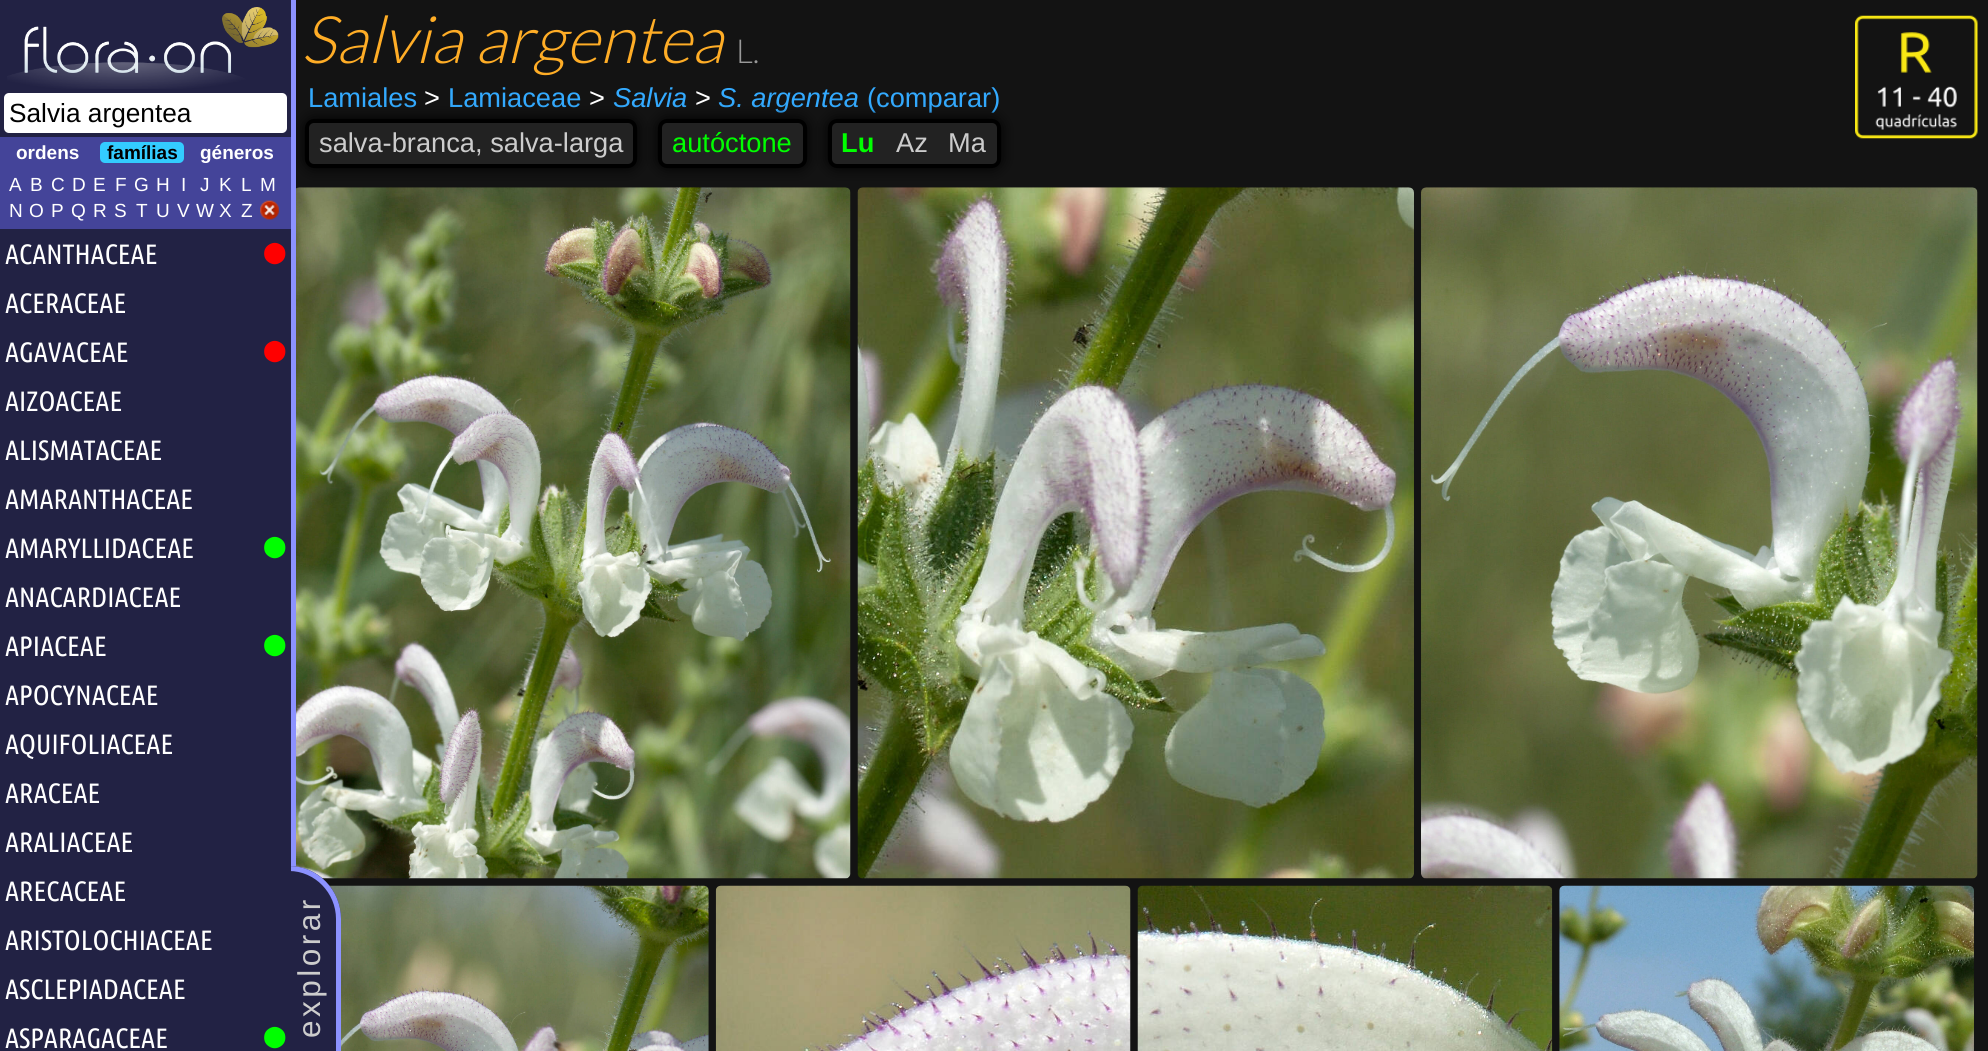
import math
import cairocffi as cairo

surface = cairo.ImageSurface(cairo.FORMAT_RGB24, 1988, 1051)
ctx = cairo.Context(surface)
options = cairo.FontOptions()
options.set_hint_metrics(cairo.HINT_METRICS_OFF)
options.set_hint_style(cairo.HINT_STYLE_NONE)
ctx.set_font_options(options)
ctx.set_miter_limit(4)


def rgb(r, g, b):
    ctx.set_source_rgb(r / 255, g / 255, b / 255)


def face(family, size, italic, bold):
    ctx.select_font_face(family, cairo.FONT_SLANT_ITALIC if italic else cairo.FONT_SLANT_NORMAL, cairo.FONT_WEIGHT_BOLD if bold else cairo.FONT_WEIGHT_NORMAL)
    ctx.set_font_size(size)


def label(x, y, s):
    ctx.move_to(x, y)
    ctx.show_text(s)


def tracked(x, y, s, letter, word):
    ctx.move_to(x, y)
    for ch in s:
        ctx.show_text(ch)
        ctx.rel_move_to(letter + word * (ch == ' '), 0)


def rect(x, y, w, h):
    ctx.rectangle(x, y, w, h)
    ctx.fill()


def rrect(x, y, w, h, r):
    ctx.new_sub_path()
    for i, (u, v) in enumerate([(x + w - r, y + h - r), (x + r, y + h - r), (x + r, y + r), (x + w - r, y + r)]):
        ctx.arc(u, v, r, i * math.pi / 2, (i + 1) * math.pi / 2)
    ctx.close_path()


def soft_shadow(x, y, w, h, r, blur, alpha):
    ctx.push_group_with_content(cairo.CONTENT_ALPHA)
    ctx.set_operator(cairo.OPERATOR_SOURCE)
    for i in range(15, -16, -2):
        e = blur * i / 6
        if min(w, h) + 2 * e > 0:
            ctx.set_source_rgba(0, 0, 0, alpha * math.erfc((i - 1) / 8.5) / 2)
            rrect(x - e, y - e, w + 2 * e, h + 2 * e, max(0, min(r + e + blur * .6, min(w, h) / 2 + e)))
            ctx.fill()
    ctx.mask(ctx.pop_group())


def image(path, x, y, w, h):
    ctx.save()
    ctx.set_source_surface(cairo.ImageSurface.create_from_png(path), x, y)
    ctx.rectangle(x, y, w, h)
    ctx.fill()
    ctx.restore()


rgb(19, 19, 19)
ctx.paint()
face('Lato Light', 65.5, 1, 0)
rgb(255, 173, 38)
label(301, 63, 'Salvia argentea')
face('Lato Light', 33, 0, 0)
rgb(153, 153, 153)
label(736, 63, 'L.')
image('image0.png', 1855, 15, 123, 124)
face('Liberation Sans', 27.25, 0, 0)
rgb(51, 170, 255)
label(308, 107, 'Lamiales')
rgb(255, 255, 255)
label(424, 107, '>')
rgb(51, 170, 255)
label(448, 107, 'Lamiaceae')
rgb(255, 255, 255)
label(589, 107, '>')
face('Liberation Sans', 27.25, 1, 0)
rgb(51, 170, 255)
label(613, 107, 'Salvia')
face('Liberation Sans', 27.25, 0, 0)
rgb(255, 255, 255)
label(695, 107, '>')
face('Liberation Sans', 27.25, 1, 0)
rgb(51, 170, 255)
label(718, 107, 'S. argentea')
face('Liberation Sans', 27.25, 0, 0)
label(867, 107, '(comparar)')
rgb(0, 0, 0)
soft_shadow(305, 119, 332, 49, 9, 7, 1)
rgb(34, 34, 34)
rrect(307, 121, 328, 45, 7)
ctx.fill_preserve()
rgb(0, 0, 0)
ctx.set_line_width(4)
ctx.stroke()
rgb(204, 204, 204)
label(319, 152, 'salva-branca, salva-larga')
rgb(0, 0, 0)
soft_shadow(658, 119, 149, 49, 9, 7, 1)
rgb(34, 34, 34)
rrect(660, 121, 145, 45, 7)
ctx.fill_preserve()
rgb(0, 0, 0)
ctx.stroke()
rgb(0, 255, 0)
label(672, 152, 'autóctone')
rgb(0, 0, 0)
soft_shadow(828, 119, 173, 49, 9, 7, 1)
rgb(34, 34, 34)
rrect(830, 121, 169, 45, 7)
ctx.fill_preserve()
rgb(0, 0, 0)
ctx.stroke()
face('Liberation Sans', 27.25, 0, 1)
rgb(0, 255, 0)
label(841, 152, 'Lu')
face('Liberation Sans', 27.25, 0, 0)
rgb(204, 204, 204)
label(896, 152, 'Az')
label(948, 152, 'Ma')
image('image1.png', 296, 187, 555, 692)
image('image2.png', 857, 187, 557, 692)
image('image3.png', 1421, 187, 557, 692)
image('image4.png', 328, 885, 381, 166)
image('image5.png', 715, 885, 416, 166)
image('image6.png', 1137, 885, 416, 166)
image('image7.png', 1559, 885, 415, 166)
rgb(140, 146, 255)
rect(291, 0, 5, 867)
rgb(34, 34, 68)
ctx.new_path()
ctx.move_to(282, 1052)
ctx.line_to(282, 866)
ctx.line_to(289, 866)
ctx.curve_to(318, 866, 341, 890, 341, 919)
ctx.line_to(341, 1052)
ctx.close_path()
ctx.fill()
rgb(140, 146, 255)
ctx.set_fill_rule(cairo.FILL_RULE_EVEN_ODD)
ctx.new_path()
ctx.move_to(282, 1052)
ctx.line_to(282, 866)
ctx.line_to(289, 866)
ctx.curve_to(318, 866, 341, 890, 341, 919)
ctx.line_to(341, 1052)
ctx.close_path()
ctx.move_to(282, 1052)
ctx.line_to(282, 871)
ctx.line_to(289, 871)
ctx.curve_to(315, 871, 336, 893, 336, 919)
ctx.line_to(336, 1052)
ctx.close_path()
ctx.fill()
rgb(34, 34, 68)
rect(0, 0, 291, 1051)
image('image8.png', 7, 7, 272, 82)
rgb(255, 255, 255)
rrect(4, 93, 283, 40, 5)
ctx.fill()
face('Liberation Sans', 26.25, 0, 0)
rgb(0, 0, 0)
label(9, 122, 'Salvia argentea')
rgb(68, 68, 153)
rect(0, 137, 291, 92)
face('Liberation Sans', 19, 0, 1)
rgb(255, 255, 255)
label(16, 159, 'ordens')
rgb(51, 204, 255)
rrect(100, 142, 84, 21, 5)
ctx.fill()
rgb(0, 0, 0)
label(107, 159, 'famílias')
rgb(255, 255, 255)
label(200, 159, 'géneros')
face('Liberation Sans', 19, 0, 0)
label(9, 191, 'A')
label(30, 191, 'B')
label(51, 191, 'C')
label(72, 191, 'D')
label(93, 191, 'E')
label(115, 191, 'F')
label(134, 191, 'G')
label(156, 191, 'H')
label(181, 191, 'I')
label(200, 191, 'J')
label(219, 191, 'K')
label(241, 191, 'L')
label(260, 191, 'M')
label(9, 217, 'N')
label(29, 217, 'O')
label(51, 217, 'P')
label(71, 217, 'Q')
label(93, 217, 'R')
label(114, 217, 'S')
label(136, 217, 'T')
label(156, 217, 'U')
label(177, 217, 'V')
label(196, 217, 'W')
label(219, 217, 'X')
label(241, 217, 'Z')
image('image9.png', 260, 200, 19, 20)
face('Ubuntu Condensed', 28, 0, 0)
label(5, 264, 'ACANTHACEAE')
face('DejaVu Sans', 21, 0, 0)
rgb(255, 0, 0)
label(263, 259, '⬤')
face('Ubuntu Condensed', 28, 0, 0)
rgb(255, 255, 255)
label(5, 313, 'ACERACEAE')
label(5, 362, 'AGAVACEAE')
face('DejaVu Sans', 21, 0, 0)
rgb(255, 0, 0)
label(263, 357, '⬤')
face('Ubuntu Condensed', 28, 0, 0)
rgb(255, 255, 255)
label(5, 411, 'AIZOACEAE')
label(5, 460, 'ALISMATACEAE')
label(5, 509, 'AMARANTHACEAE')
label(5, 558, 'AMARYLLIDACEAE')
face('DejaVu Sans', 21, 0, 0)
rgb(0, 255, 0)
label(263, 553, '⬤')
face('Ubuntu Condensed', 28, 0, 0)
rgb(255, 255, 255)
label(5, 607, 'ANACARDIACEAE')
label(5, 656, 'APIACEAE')
face('DejaVu Sans', 21, 0, 0)
rgb(0, 255, 0)
label(263, 651, '⬤')
face('Ubuntu Condensed', 28, 0, 0)
rgb(255, 255, 255)
label(5, 705, 'APOCYNACEAE')
label(5, 754, 'AQUIFOLIACEAE')
label(5, 803, 'ARACEAE')
label(5, 852, 'ARALIACEAE')
label(5, 901, 'ARECACEAE')
label(5, 950, 'ARISTOLOCHIACEAE')
label(5, 999, 'ASCLEPIADACEAE')
label(5, 1048, 'ASPARAGACEAE')
face('DejaVu Sans', 21, 0, 0)
rgb(0, 255, 0)
label(263, 1043, '⬤')
face('Liberation Sans', 31.5, 0, 0)
rgb(204, 204, 204)
ctx.save()
ctx.translate(320, 1038)
ctx.rotate(-90 * math.pi / 180)
tracked(0, 0, 'explorar', 3.5, 0)
ctx.restore()
surface.write_to_png('render.png')
